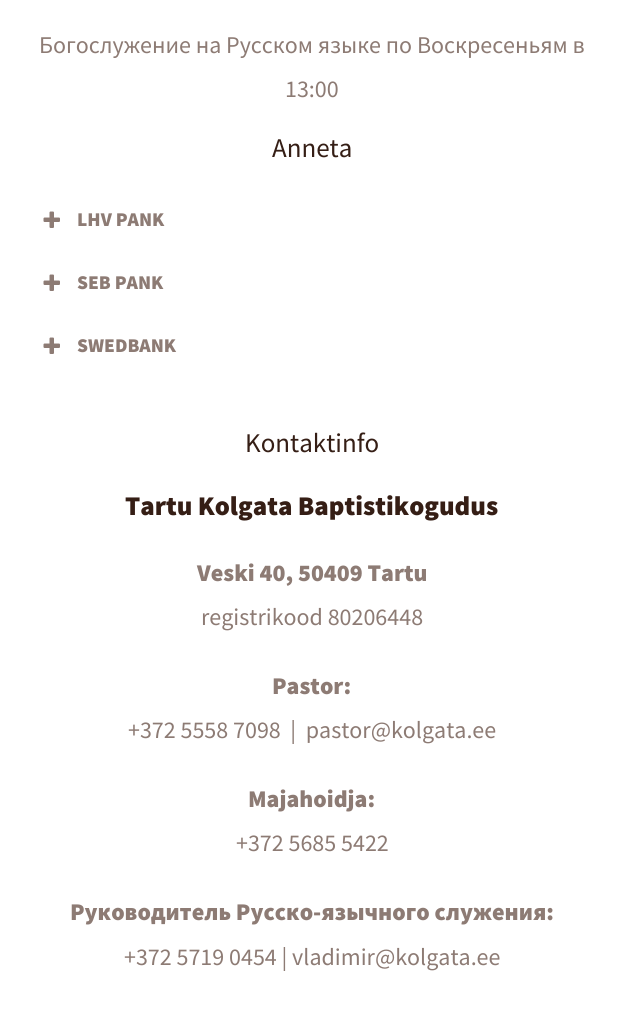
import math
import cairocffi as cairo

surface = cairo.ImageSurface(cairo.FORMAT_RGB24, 624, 1018)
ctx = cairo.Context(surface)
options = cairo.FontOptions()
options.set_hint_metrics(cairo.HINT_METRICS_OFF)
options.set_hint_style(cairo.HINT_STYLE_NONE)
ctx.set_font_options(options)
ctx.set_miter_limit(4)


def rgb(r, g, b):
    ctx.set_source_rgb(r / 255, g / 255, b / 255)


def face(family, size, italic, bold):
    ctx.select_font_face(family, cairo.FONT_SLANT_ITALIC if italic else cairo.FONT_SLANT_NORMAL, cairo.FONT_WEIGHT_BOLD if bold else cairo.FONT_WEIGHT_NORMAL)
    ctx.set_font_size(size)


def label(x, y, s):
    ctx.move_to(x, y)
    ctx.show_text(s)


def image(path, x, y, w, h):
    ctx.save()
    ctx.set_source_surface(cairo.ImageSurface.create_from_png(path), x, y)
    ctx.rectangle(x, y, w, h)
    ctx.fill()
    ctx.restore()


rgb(255, 255, 255)
ctx.paint()
face('Source Sans Pro', 24, 0, 0)
rgb(141, 123, 116)
label(39, 53, 'Богослужение на Русском языке по Воскресеньям в')
label(285, 97, '13:00')
face('Source Sans Pro', 27, 0, 0)
rgb(53, 30, 21)
label(272, 157, 'Anneta')
image('image0.png', 43, 211, 17, 17)
face('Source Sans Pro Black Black', 19.5, 0, 0)
rgb(141, 123, 116)
label(77, 226, 'LHV PANK')
image('image0.png', 43, 274, 17, 17)
label(77, 289, 'SEB PANK')
image('image0.png', 43, 337, 17, 17)
label(77, 352, 'SWEDBANK')
face('Source Sans Pro', 27, 0, 0)
rgb(53, 30, 21)
label(245, 452, 'Kontaktinfo')
face('Source Sans Pro Black Black', 27, 0, 0)
label(125, 515, 'Tartu Kolgata Baptistikogudus')
face('Source Sans Pro Black Black', 24, 0, 0)
rgb(141, 123, 116)
label(197, 581, 'Veski 40, 50409 Tartu')
face('Source Sans Pro', 24, 0, 0)
label(201, 625, 'registrikood 80206448')
face('Source Sans Pro Black Black', 24, 0, 0)
label(272, 694, 'Pastor:')
face('Source Sans Pro', 24, 0, 0)
label(128, 738, '+372 5558 7098  |  pastor@kolgata.ee')
face('Source Sans Pro Black Black', 24, 0, 0)
label(248, 807, 'Majahoidja:')
face('Source Sans Pro', 24, 0, 0)
label(236, 851, '+372 5685 5422')
face('Source Sans Pro Black Black', 24, 0, 0)
label(70, 920, 'Руководитель Русско-язычного служения:')
face('Source Sans Pro', 24, 0, 0)
label(124, 965, '+372 5719 0454 | vladimir@kolgata.ee')
surface.write_to_png('render.png')
